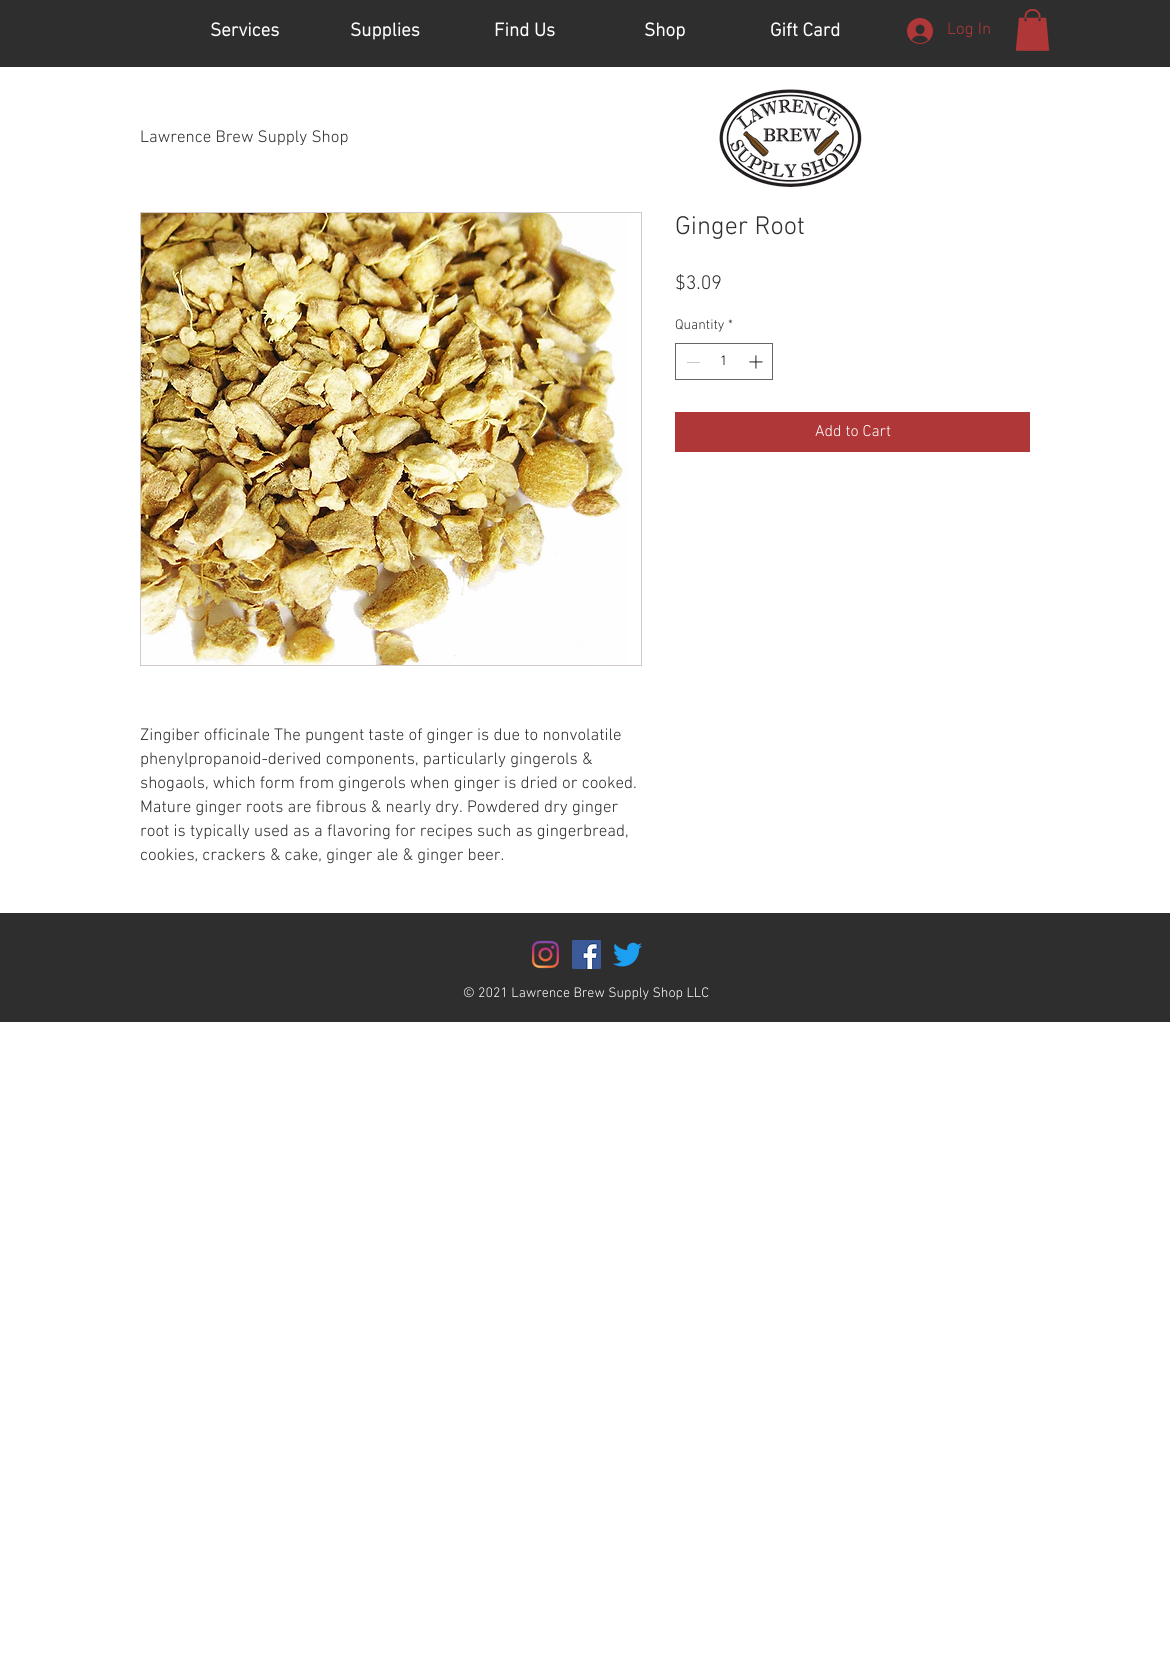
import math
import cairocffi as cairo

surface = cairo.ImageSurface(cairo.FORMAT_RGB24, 1170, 1665)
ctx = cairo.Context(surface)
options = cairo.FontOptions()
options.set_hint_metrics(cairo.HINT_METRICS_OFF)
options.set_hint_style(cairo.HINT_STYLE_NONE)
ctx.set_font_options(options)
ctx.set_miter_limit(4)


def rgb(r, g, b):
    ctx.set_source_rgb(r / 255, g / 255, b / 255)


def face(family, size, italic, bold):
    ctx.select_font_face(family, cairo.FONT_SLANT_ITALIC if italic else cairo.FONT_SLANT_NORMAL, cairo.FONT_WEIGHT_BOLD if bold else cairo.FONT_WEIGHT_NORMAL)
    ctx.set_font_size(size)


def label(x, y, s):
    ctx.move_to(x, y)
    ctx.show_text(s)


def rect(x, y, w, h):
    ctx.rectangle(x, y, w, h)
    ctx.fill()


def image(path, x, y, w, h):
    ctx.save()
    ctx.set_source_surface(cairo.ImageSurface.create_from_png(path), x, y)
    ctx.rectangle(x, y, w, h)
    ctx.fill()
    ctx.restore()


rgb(255, 255, 255)
ctx.paint()
rgb(47, 46, 46)
rect(0, 0, 1170, 67)
face('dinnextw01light', 19, 0, 1)
rgb(255, 255, 255)
label(210, 36, 'Services')
label(350, 36, 'Supplies')
label(494, 36, 'Find Us')
label(644, 36, 'Shop')
label(770, 36, 'Gift Card')
image('image0.png', 907, 18, 26, 26)
face('dinnextw01light Light', 17, 0, 0)
rgb(176, 55, 55)
label(947, 34, 'Log In')
image('image1.png', 1015, 9, 35, 42)
image('image2.png', 719, 89, 143, 98)
rgb(47, 46, 46)
label(140, 142, 'Lawrence Brew Supply Shop')
face('dinnextw01light Light', 26, 0, 0)
label(675, 234, 'Ginger Root')
face('dinnextw01light Light', 20, 0, 0)
label(675, 289, '$3.09')
face('dinnextw01light Light', 14, 0, 0)
label(675, 329, 'Quantity')
label(728, 329, '*')
ctx.rectangle(675.5, 343.5, 97, 36)
rgb(102, 102, 102)
ctx.set_line_width(1)
ctx.stroke()
rgb(199, 199, 199)
rect(687, 362, 13, 1)
rgb(0, 0, 0)
label(720, 365, '1')
image('image3.png', 749, 355, 14, 14)
rgb(176, 55, 55)
rect(675, 412, 355, 40)
face('dinnextw01light Light', 16, 0, 0)
rgb(255, 255, 255)
label(815, 436, 'Add to Cart')
ctx.rectangle(140.5, 212.5, 501, 453)
rgb(209, 202, 201)
ctx.stroke()
image('image4.png', 141, 213, 486, 452)
face('dinnextw01light Light', 17, 0, 0)
rgb(47, 46, 46)
label(140, 740, 'Zingiber officinale The pungent taste of ginger is due to nonvolatile')
label(140, 764, 'phenylpropanoid-derived components, particularly gingerols &')
label(140, 788, 'shogaols, which form from gingerols when ginger is dried or cooked.')
label(140, 812, 'Mature ginger roots are fibrous & nearly dry. Powdered dry ginger')
label(140, 836, 'root is typically used as a flavoring for recipes such as gingerbread,')
label(140, 860, 'cookies, crackers & cake, ginger ale & ginger beer.')
rect(0, 913, 1170, 109)
image('image5.png', 532, 940, 27, 29)
image('image6.png', 572, 940, 29, 29)
image('image7.png', 613, 942, 29, 25)
face('dinnextw01light Light', 14, 0, 0)
rgb(255, 255, 255)
label(463, 997, '© 2021 Lawrence Brew Supply Shop LLC')
surface.write_to_png('render.png')
